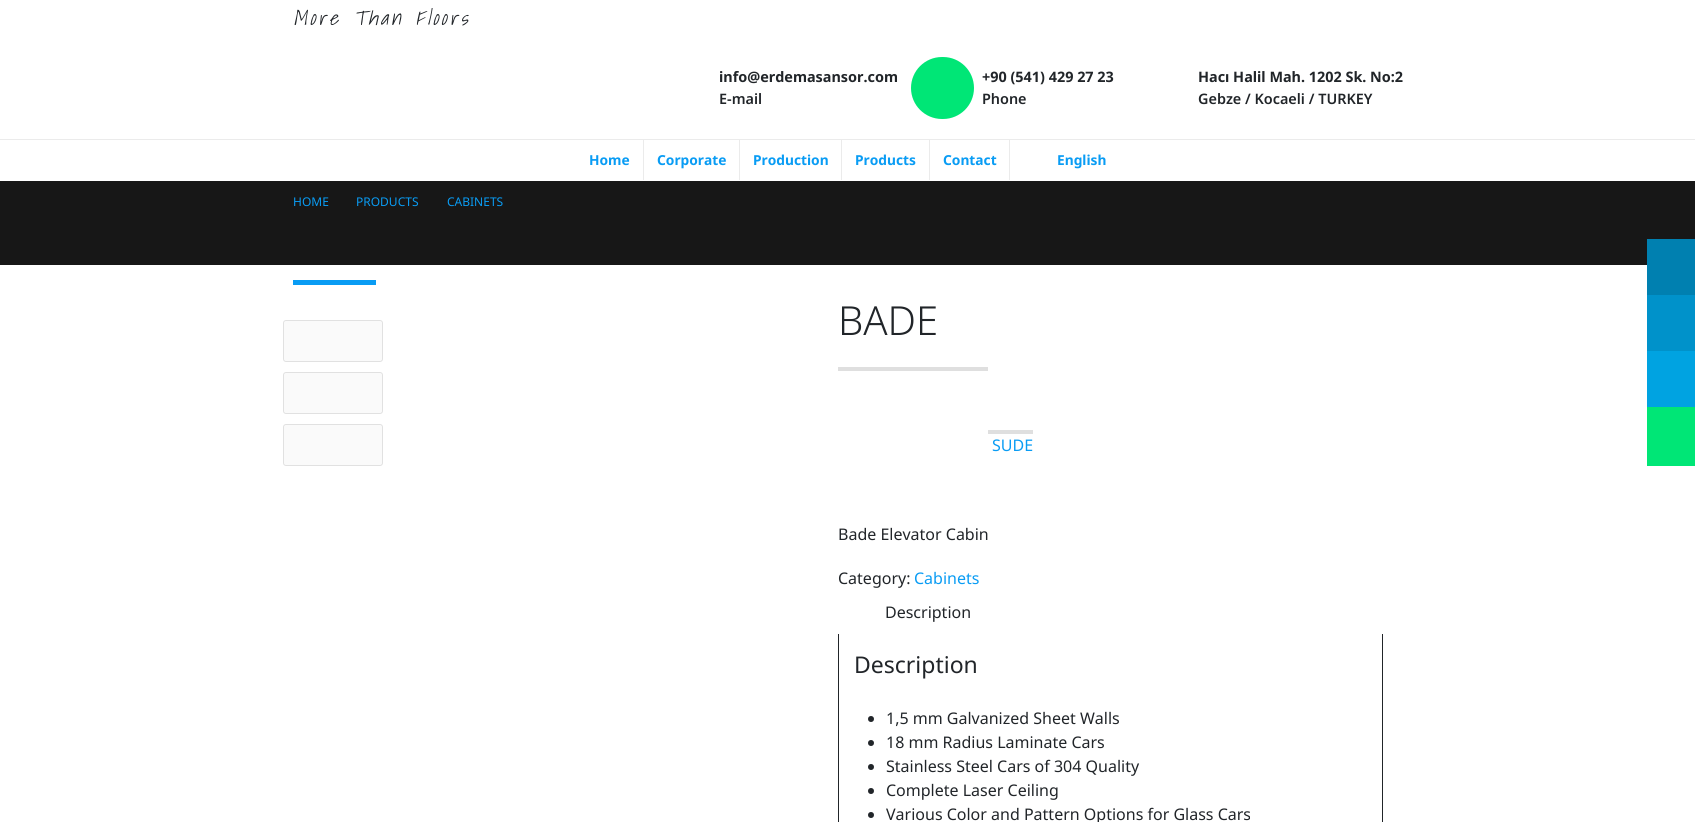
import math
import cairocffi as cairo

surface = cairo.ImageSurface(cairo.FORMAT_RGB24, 1695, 822)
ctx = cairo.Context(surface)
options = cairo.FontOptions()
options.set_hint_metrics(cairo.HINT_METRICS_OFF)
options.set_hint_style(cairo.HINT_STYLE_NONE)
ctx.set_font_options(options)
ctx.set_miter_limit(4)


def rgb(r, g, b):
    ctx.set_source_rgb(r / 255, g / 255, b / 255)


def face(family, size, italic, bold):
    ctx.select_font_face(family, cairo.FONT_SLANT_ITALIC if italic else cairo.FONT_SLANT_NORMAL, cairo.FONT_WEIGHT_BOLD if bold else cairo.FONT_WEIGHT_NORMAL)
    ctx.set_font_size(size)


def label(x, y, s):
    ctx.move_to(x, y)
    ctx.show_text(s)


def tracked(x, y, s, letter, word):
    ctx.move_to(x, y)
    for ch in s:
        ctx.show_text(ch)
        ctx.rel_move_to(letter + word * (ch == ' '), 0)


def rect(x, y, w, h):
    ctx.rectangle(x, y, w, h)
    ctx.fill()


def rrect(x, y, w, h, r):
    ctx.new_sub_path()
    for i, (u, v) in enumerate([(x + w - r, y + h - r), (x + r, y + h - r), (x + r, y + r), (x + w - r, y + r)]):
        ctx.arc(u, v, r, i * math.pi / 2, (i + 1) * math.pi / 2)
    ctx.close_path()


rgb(255, 255, 255)
ctx.paint()
face('Shadows Into Light Light', 20, 1, 0)
rgb(33, 37, 41)
tracked(293, 25, 'More Than Floors', 3, 0)
face('Noto Sans', 14.4, 0, 1)
label(719, 82, 'info@erdemasansor.com')
face('Noto Sans SemiBold', 14.4, 0, 0)
label(719, 104, 'E-mail')
rgb(0, 230, 118)
rrect(911, 57, 63, 62, 31)
ctx.fill()
face('Noto Sans', 14.4, 0, 1)
rgb(33, 37, 41)
label(982, 82, '+90 (541) 429 27 23')
face('Noto Sans SemiBold', 14.4, 0, 0)
label(982, 104, 'Phone')
face('Noto Sans', 14.4, 0, 1)
label(1198, 82, 'Hacı Halil Mah. 1202 Sk. No:2')
face('Noto Sans SemiBold', 14.4, 0, 0)
label(1198, 104, 'Gebze / Kocaeli / TURKEY')
rgb(235, 235, 235)
rect(0, 139, 1695, 1)
rect(643, 140, 1, 40)
face('Noto Sans', 13.75, 0, 1)
rgb(9, 156, 244)
label(589, 165, 'Home')
rgb(235, 235, 235)
rect(739, 140, 1, 40)
rgb(9, 156, 244)
label(657, 165, 'Corporate')
rgb(235, 235, 235)
rect(841, 140, 1, 40)
rgb(9, 156, 244)
label(753, 165, 'Production')
rgb(235, 235, 235)
rect(929, 140, 1, 40)
rgb(9, 156, 244)
label(855, 165, 'Products')
rgb(235, 235, 235)
rect(1009, 140, 1, 40)
rgb(9, 156, 244)
label(943, 165, 'Contact')
label(1057, 165, 'English')
rgb(23, 23, 23)
rect(0, 181, 1695, 84)
face('Noto Sans', 12, 0, 0)
rgb(9, 156, 244)
label(293, 206, 'HOME')
label(356, 206, 'PRODUCTS')
label(447, 206, 'CABINETS')
rect(293, 280, 83, 5)
rgb(250, 250, 250)
rrect(283.5, 320.5, 99, 41, 2.5)
ctx.fill_preserve()
rgb(225, 225, 225)
ctx.set_line_width(1)
ctx.stroke()
rgb(250, 250, 250)
rrect(283.5, 372.5, 99, 41, 2.5)
ctx.fill_preserve()
rgb(225, 225, 225)
ctx.stroke()
rgb(250, 250, 250)
rrect(283.5, 424.5, 99, 41, 2.5)
ctx.fill_preserve()
rgb(225, 225, 225)
ctx.stroke()
face('Noto Sans Light', 40, 0, 0)
rgb(33, 37, 41)
label(838, 335, 'BADE')
face('Noto Sans', 16, 0, 0)
rgb(9, 156, 244)
label(992, 451, 'SUDE')
rgb(223, 223, 223)
rect(838, 367, 150, 4)
rect(988, 430, 45, 4)
rgb(33, 37, 41)
label(838, 540, 'Bade Elevator Cabin')
label(838, 584, 'Category:')
rgb(9, 156, 244)
label(914, 584, 'Cabinets')
rgb(33, 37, 41)
label(885, 618, 'Description')
rect(1382, 634, 1, 188)
rect(838, 634, 1, 188)
face('Noto Sans', 23, 0, 0)
label(854, 673, 'Description')
ctx.new_path()
ctx.arc(871, 719, 3, 0, 2 * math.pi)
ctx.fill()
face('Noto Sans', 16, 0, 0)
label(886, 724, '1,5 mm Galvanized Sheet Walls')
ctx.new_path()
ctx.arc(871, 743, 3, 0, 2 * math.pi)
ctx.fill()
label(886, 748, '18 mm Radius Laminate Cars')
ctx.new_path()
ctx.arc(871, 767, 3, 0, 2 * math.pi)
ctx.fill()
label(886, 772, 'Stainless Steel Cars of 304 Quality')
ctx.new_path()
ctx.arc(871, 791, 3, 0, 2 * math.pi)
ctx.fill()
label(886, 796, 'Complete Laser Ceiling')
ctx.new_path()
ctx.arc(871, 815, 3, 0, 2 * math.pi)
ctx.fill()
label(886, 820, 'Various Color and Pattern Options for Glass Cars')
rgb(0, 128, 176)
rect(1647, 239, 48, 56)
rgb(0, 146, 202)
rect(1647, 295, 48, 56)
rgb(0, 163, 225)
rect(1647, 351, 48, 56)
rgb(0, 230, 118)
rect(1647, 407, 48, 59)
surface.write_to_png('render.png')
